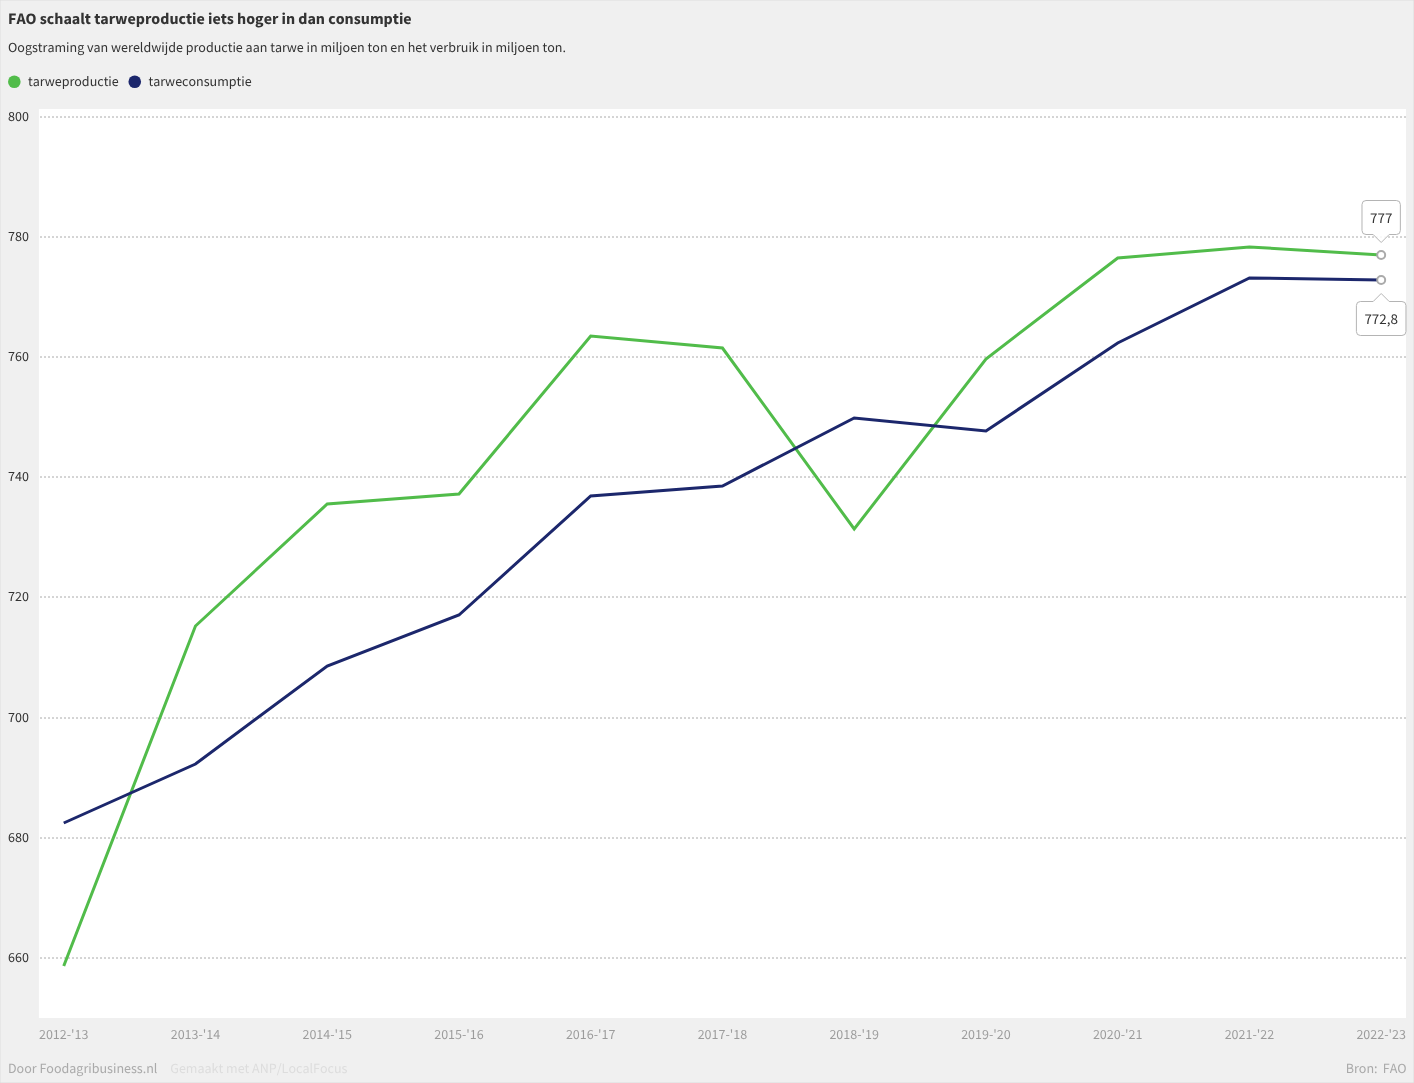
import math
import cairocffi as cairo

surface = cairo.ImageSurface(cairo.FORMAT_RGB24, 1414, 1083)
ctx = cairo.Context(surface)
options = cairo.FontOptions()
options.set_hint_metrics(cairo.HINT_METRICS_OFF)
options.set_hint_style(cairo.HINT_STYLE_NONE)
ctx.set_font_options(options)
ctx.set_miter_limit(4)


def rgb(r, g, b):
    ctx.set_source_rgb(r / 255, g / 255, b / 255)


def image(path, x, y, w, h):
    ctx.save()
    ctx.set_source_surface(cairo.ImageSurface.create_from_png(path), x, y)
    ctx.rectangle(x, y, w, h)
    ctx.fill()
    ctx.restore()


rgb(255, 255, 255)
ctx.paint()
image('image0.png', 0, 0, 1414, 1083)
surface.write_to_png('render.png')
